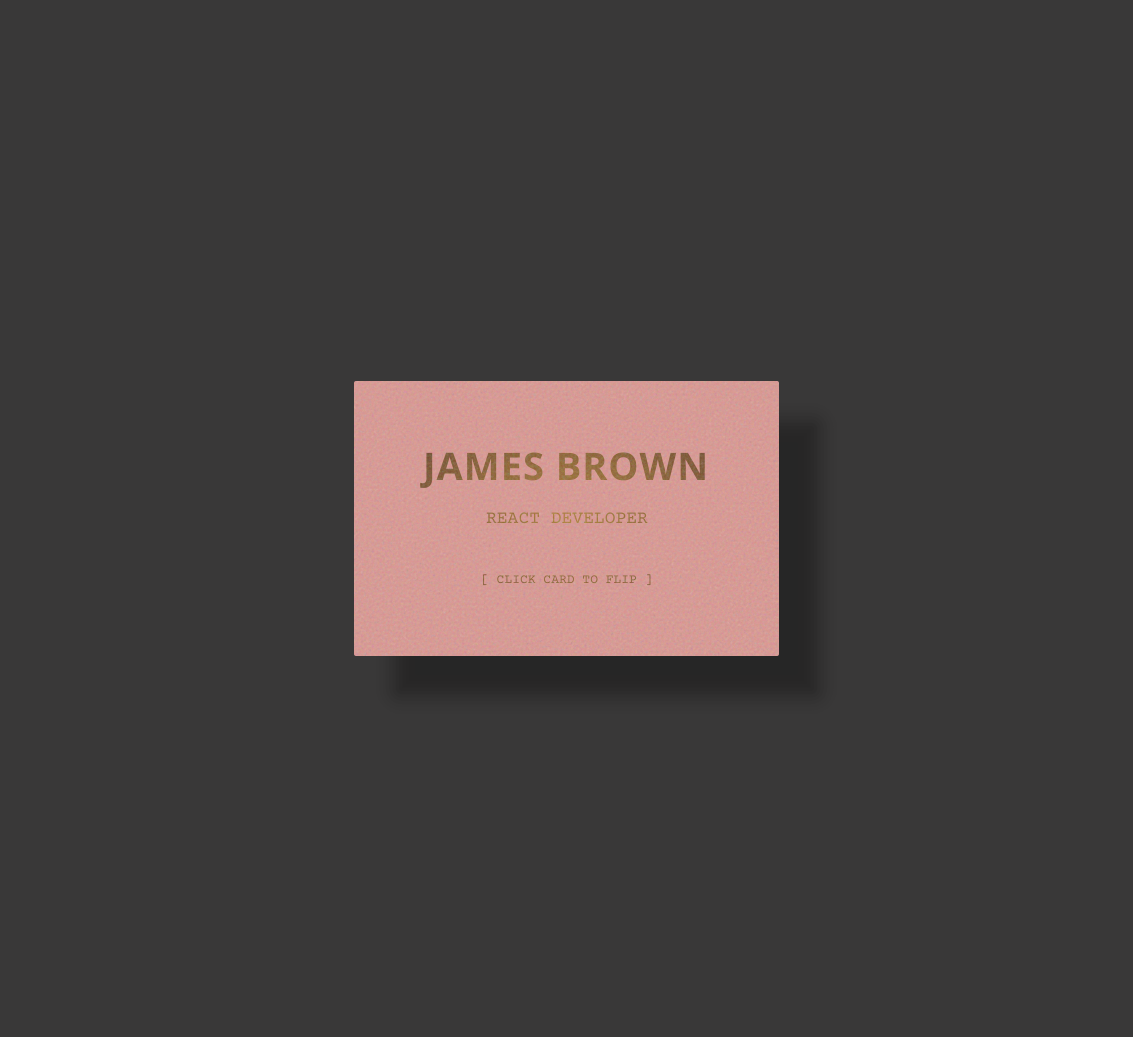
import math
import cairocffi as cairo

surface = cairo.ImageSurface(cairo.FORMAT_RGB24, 1133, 1037)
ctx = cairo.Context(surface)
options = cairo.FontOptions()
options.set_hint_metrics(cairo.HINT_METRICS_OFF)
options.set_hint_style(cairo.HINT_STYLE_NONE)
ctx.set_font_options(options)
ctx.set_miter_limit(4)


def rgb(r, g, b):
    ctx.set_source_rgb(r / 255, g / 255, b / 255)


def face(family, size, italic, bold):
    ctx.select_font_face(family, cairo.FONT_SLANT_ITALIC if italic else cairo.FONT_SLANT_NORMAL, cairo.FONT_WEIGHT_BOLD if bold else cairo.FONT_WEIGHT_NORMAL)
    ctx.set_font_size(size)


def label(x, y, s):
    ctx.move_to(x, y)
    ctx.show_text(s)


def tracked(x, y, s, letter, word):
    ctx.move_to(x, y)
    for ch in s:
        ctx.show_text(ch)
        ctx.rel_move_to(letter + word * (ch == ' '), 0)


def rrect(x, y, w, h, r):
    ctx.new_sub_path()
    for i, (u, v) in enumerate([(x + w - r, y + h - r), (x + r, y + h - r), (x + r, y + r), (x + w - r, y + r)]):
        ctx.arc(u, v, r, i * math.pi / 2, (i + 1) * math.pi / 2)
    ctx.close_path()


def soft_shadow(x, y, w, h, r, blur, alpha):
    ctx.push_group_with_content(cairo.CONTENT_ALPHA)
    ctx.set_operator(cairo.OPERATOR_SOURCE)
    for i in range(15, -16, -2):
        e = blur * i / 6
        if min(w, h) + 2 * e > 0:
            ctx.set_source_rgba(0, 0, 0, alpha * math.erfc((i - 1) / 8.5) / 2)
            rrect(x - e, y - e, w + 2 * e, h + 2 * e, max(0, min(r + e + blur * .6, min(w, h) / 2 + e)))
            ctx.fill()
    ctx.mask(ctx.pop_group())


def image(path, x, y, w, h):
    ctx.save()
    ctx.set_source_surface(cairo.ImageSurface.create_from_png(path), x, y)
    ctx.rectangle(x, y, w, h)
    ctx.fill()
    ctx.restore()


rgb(57, 56, 56)
ctx.paint()
rgb(0, 0, 0)
soft_shadow(394, 421, 425, 275, 2, 10, 0.33)
rgb(219, 150, 144)
rrect(354, 381, 425, 275, 2)
ctx.fill()
face('Open Sans', 38, 0, 1)
gradient = cairo.RadialGradient(0, 0, 0, 0, 0, 1)
gradient.set_matrix(cairo.Matrix(1 / 301, 0, 0, 1 / 194, -1 * 567 / 301, -1 * 519 / 194))
gradient.add_color_stop_rgba(0, 0.678, 0.49, 0.204, 1)
gradient.add_color_stop_rgba(1, 0.275, 0.145, 0.137, 1)
ctx.set_source(gradient)
tracked(423, 480, 'JAMES BROWN', 1, 0)
face('Courier Prime', 18, 0, 0)
label(486, 523, 'REACT DEVELOPER')
face('Courier Prime', 13, 0, 0)
label(481, 583, '[ CLICK CARD TO FLIP ]')
image('image1.png', 354, 381, 425, 275)
image('image0.png', 354, 381, 425, 275)
surface.write_to_png('render.png')
